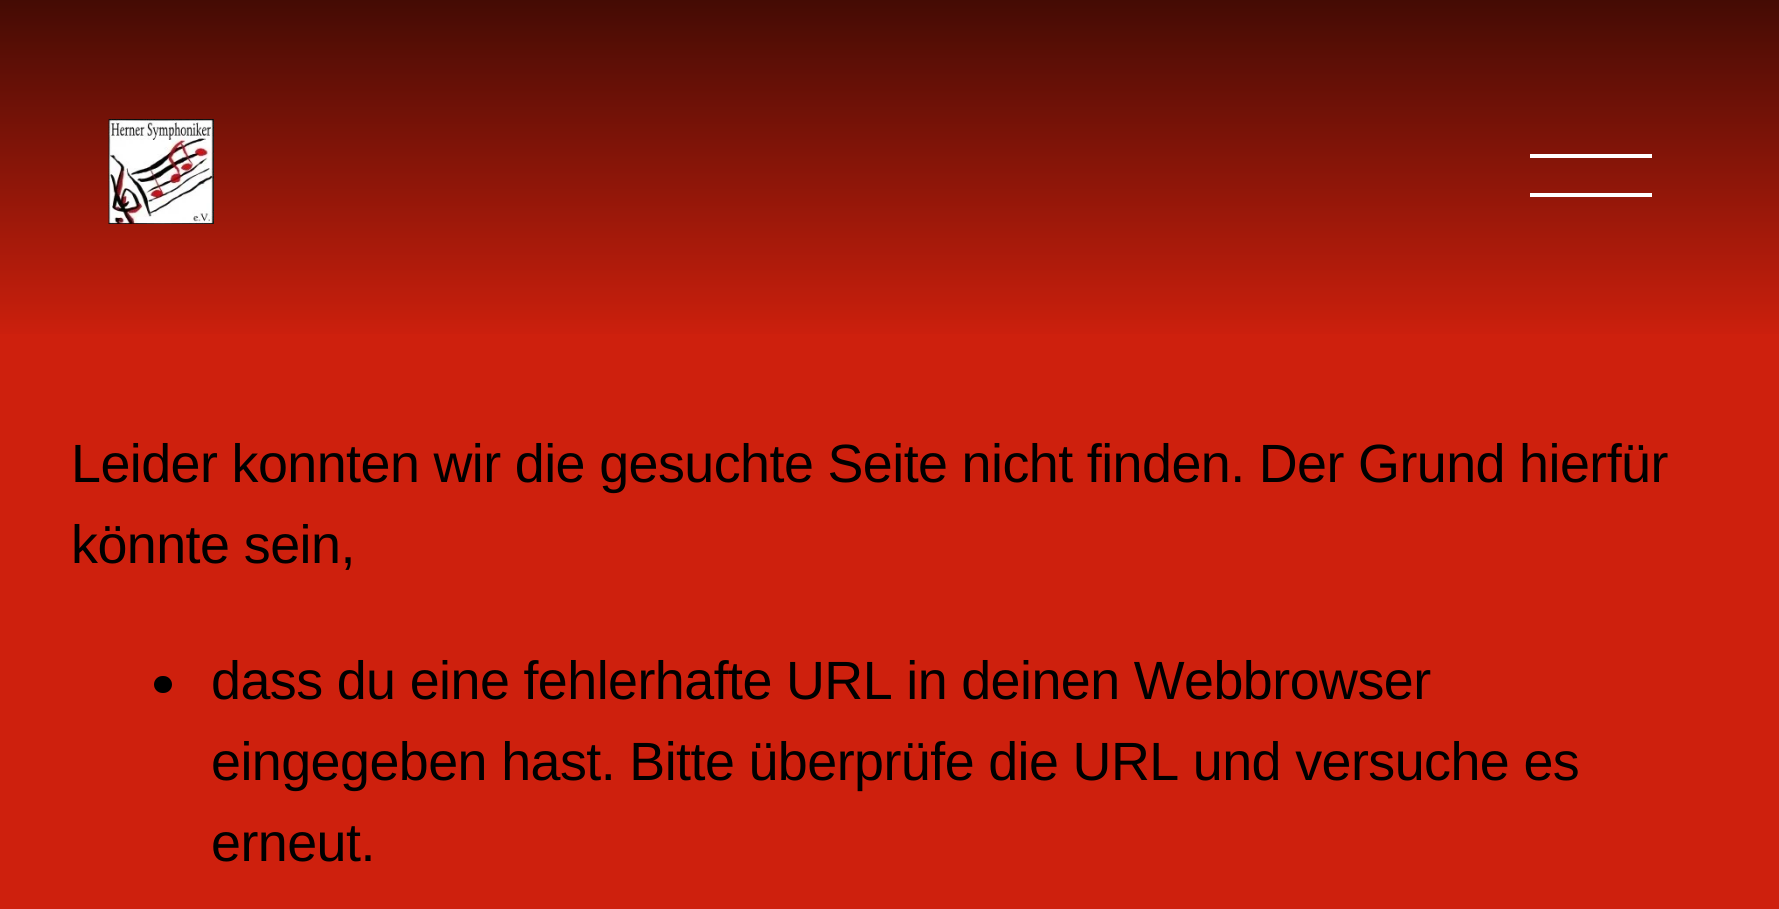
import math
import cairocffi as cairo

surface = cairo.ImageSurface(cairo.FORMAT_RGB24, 1779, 909)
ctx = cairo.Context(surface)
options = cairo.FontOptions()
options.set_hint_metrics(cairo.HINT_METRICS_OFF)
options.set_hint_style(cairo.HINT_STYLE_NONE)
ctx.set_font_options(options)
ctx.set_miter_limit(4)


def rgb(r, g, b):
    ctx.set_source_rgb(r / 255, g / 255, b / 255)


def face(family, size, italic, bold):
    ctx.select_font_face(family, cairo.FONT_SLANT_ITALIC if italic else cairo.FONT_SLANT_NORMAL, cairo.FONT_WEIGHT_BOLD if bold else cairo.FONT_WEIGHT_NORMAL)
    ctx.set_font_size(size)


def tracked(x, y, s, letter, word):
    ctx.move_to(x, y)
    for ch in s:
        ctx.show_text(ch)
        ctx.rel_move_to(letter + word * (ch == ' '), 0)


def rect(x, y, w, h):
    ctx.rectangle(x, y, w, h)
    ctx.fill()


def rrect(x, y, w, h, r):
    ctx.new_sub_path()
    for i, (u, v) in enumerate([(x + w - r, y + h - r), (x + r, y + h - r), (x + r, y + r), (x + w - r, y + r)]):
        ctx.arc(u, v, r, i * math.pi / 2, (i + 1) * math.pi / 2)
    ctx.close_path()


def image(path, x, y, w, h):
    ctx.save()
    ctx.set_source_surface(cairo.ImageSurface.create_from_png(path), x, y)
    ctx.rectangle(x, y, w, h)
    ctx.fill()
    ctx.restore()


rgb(206, 32, 13)
ctx.paint()
gradient = cairo.LinearGradient(891, 0, 891, 343)
gradient.add_color_stop_rgba(0, 0.267, 0.043, 0.016, 1)
gradient.add_color_stop_rgba(1, 0.812, 0.125, 0.051, 1)
ctx.set_source(gradient)
rect(0, 0, 1779, 334)
image('image0.png', 108, 119, 106, 105)
rgb(255, 255, 255)
rect(1530, 154, 122, 4)
rect(1530, 193, 122, 4)
face('Liberation Sans', 53.85, 0, 0)
rgb(0, 0, 0)
tracked(71, 482, 'Leider konnten wir die gesuchte Seite nicht finden. Der Grund hierfür', -0.55, -0.25)
tracked(71, 563, 'könnte sein,', -0.55, 0)
rrect(154, 676, 18, 17, 8.5)
ctx.fill()
tracked(211, 699, 'dass du eine fehlerhafte URL in deinen Webbrowser', -0.55, -0.25)
tracked(211, 780, 'eingegeben hast. Bitte überprüfe die URL und versuche es', -0.55, -0.25)
tracked(211, 861, 'erneut.', -0.55, 0)
surface.write_to_png('render.png')
